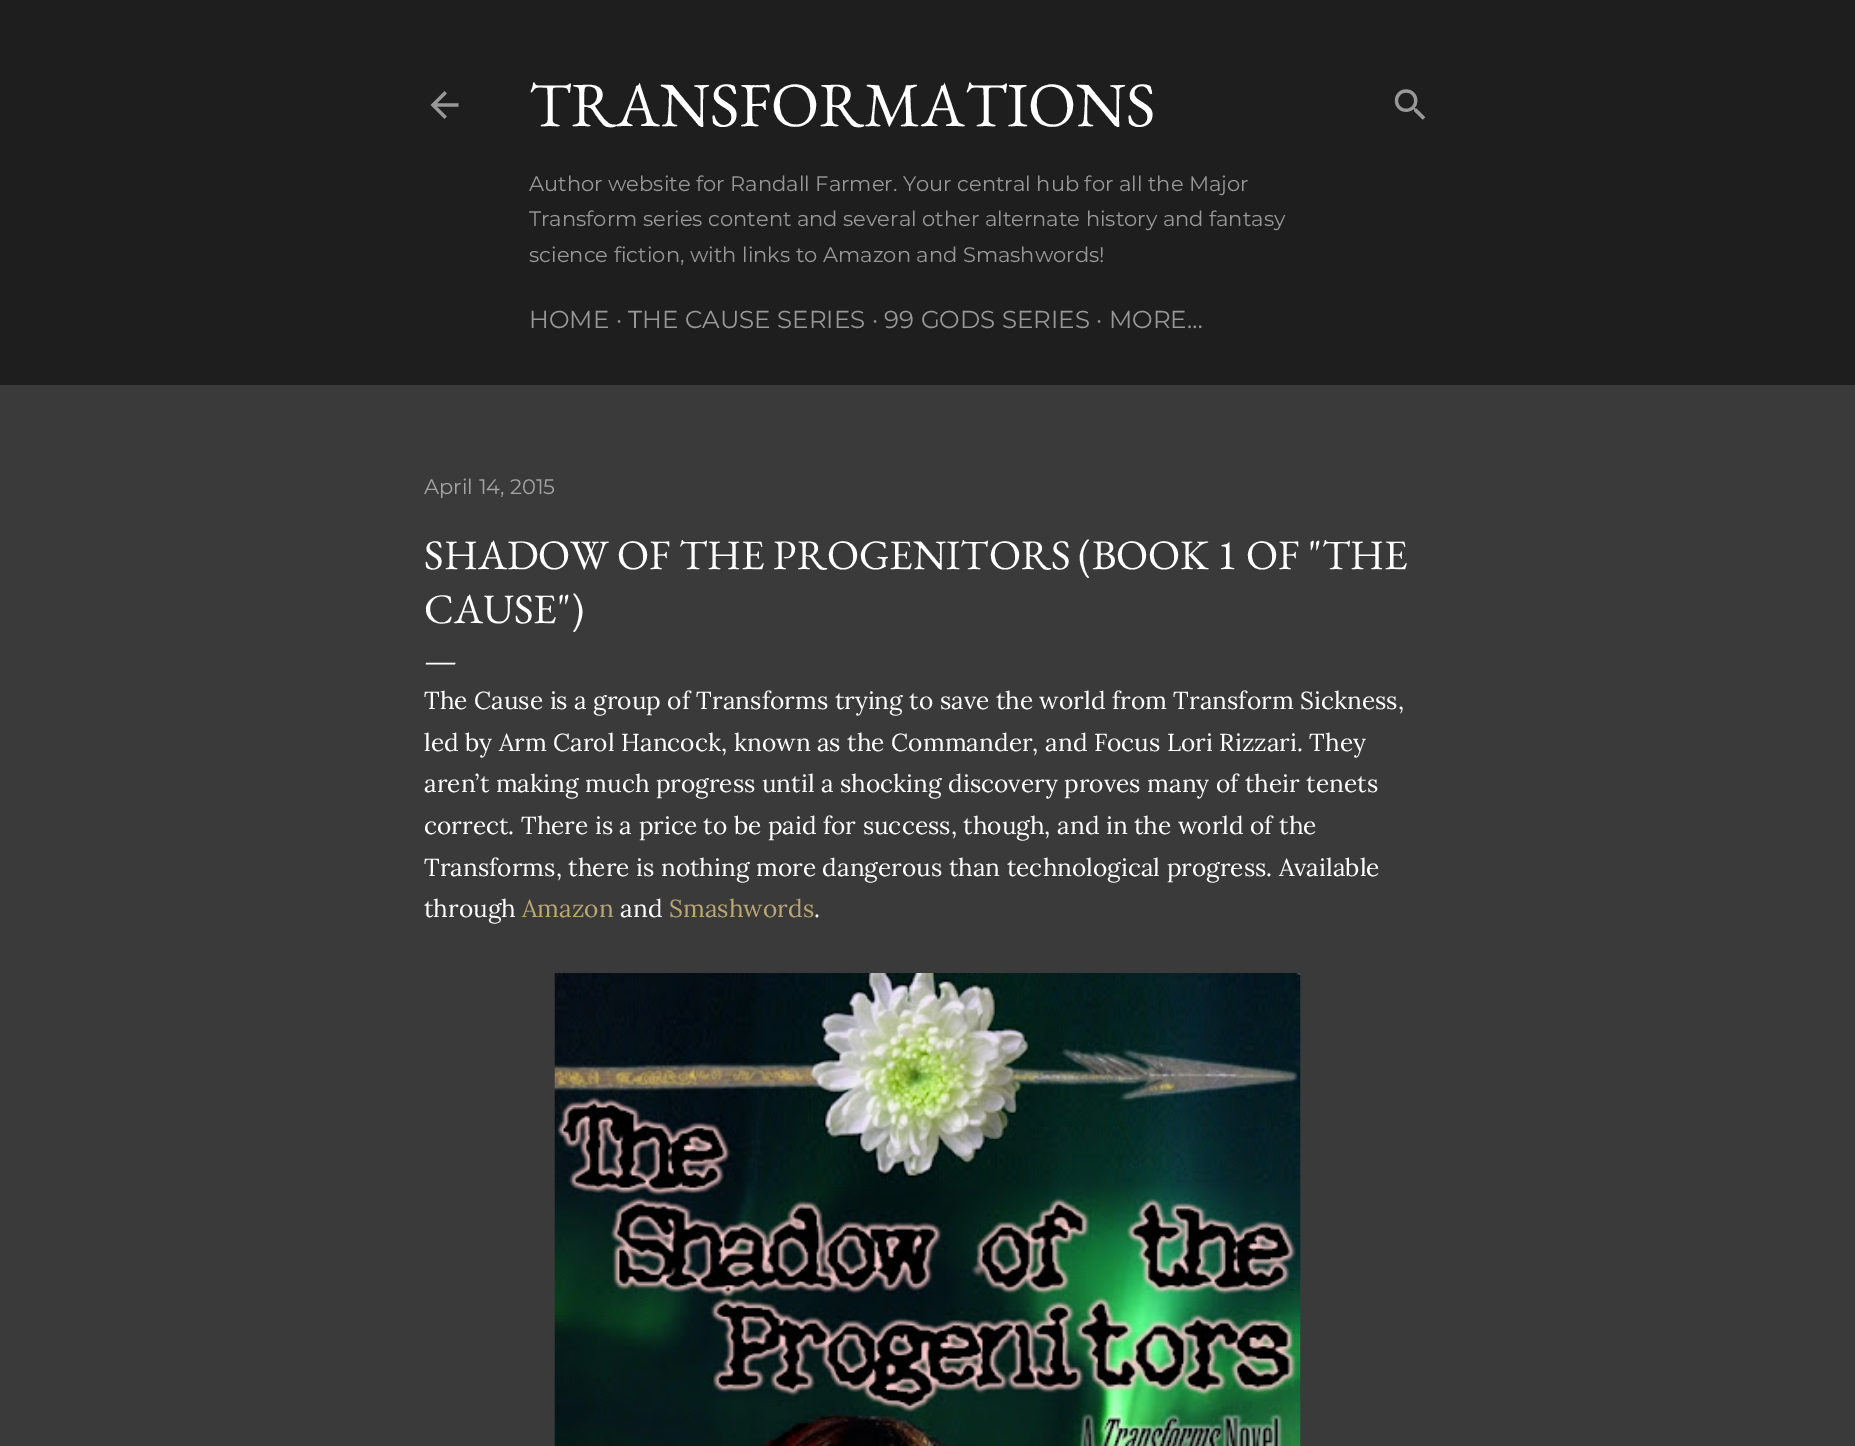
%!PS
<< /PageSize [1855 1446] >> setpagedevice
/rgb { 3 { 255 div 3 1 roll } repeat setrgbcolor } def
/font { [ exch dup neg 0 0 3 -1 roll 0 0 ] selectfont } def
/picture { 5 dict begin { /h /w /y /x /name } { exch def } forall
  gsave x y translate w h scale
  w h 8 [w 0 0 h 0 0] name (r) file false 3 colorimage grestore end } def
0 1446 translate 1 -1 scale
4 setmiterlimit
58 58 58 rgb
0 0 1855 1446 rectfill
30 30 30 rgb
0 0 1855 385 rectfill
(img/1.rgb) 430 91 29 28 picture
(img/2.rgb) 1394 89 32 31 picture
(img/3.rgb) 554 973 747 473 picture
/EBGaramond-Regular 63 font
255 255 255 rgb
529 126 moveto (TRANSFORMATIONS) show
/Montserrat-Regular 21 font
152 152 152 rgb
[
  [(Author website for Randall Farmer. Your central hub for all the Major) 529 191]
  [(Transform series content and several other alternate history and fantasy) 529 226]
  [(science fiction, with links to Amazon and Smashwords!) 529 262]
] { aload pop moveto show } forall
/Montserrat-Regular 24.5 font
529 328 moveto (HOME · THE CAUSE SERIES · 99 GODS SERIES · MORE…) show
/Montserrat-Regular 21 font
164 164 164 rgb
424 494 moveto (April 14, 2015) show
/EBGaramond-Regular 42 font
255 255 255 rgb
424 569 moveto (SHADOW OF THE PROGENITORS \(BOOK 1 OF "THE) show
424 623 moveto (CAUSE"\)) show
/EBGaramond-Regular 35 font
424 671 moveto (—) show
/Lora-Regular 24.5 font
[
  [(The Cause is a group of Transforms trying to save the world from Transform Sickness,) 424 709]
  [(led by Arm Carol Hancock, known as the Commander, and Focus Lori Rizzari. They) 424 751]
  [(aren’t making much progress until a shocking discovery proves many of their tenets) 424 792]
  [(correct. There is a price to be paid for success, though, and in the world of the) 424 834]
  [(Transforms, there is nothing more dangerous than technological progress. Available) 424 876]
  [(through) 424 917]
] { aload pop moveto show } forall
188 167 114 rgb
522 917 moveto (Amazon) show
255 255 255 rgb
620 917 moveto (and) show
188 167 114 rgb
669 917 moveto (Smashwords) show
255 255 255 rgb
814 917 moveto (.) show
showpage
